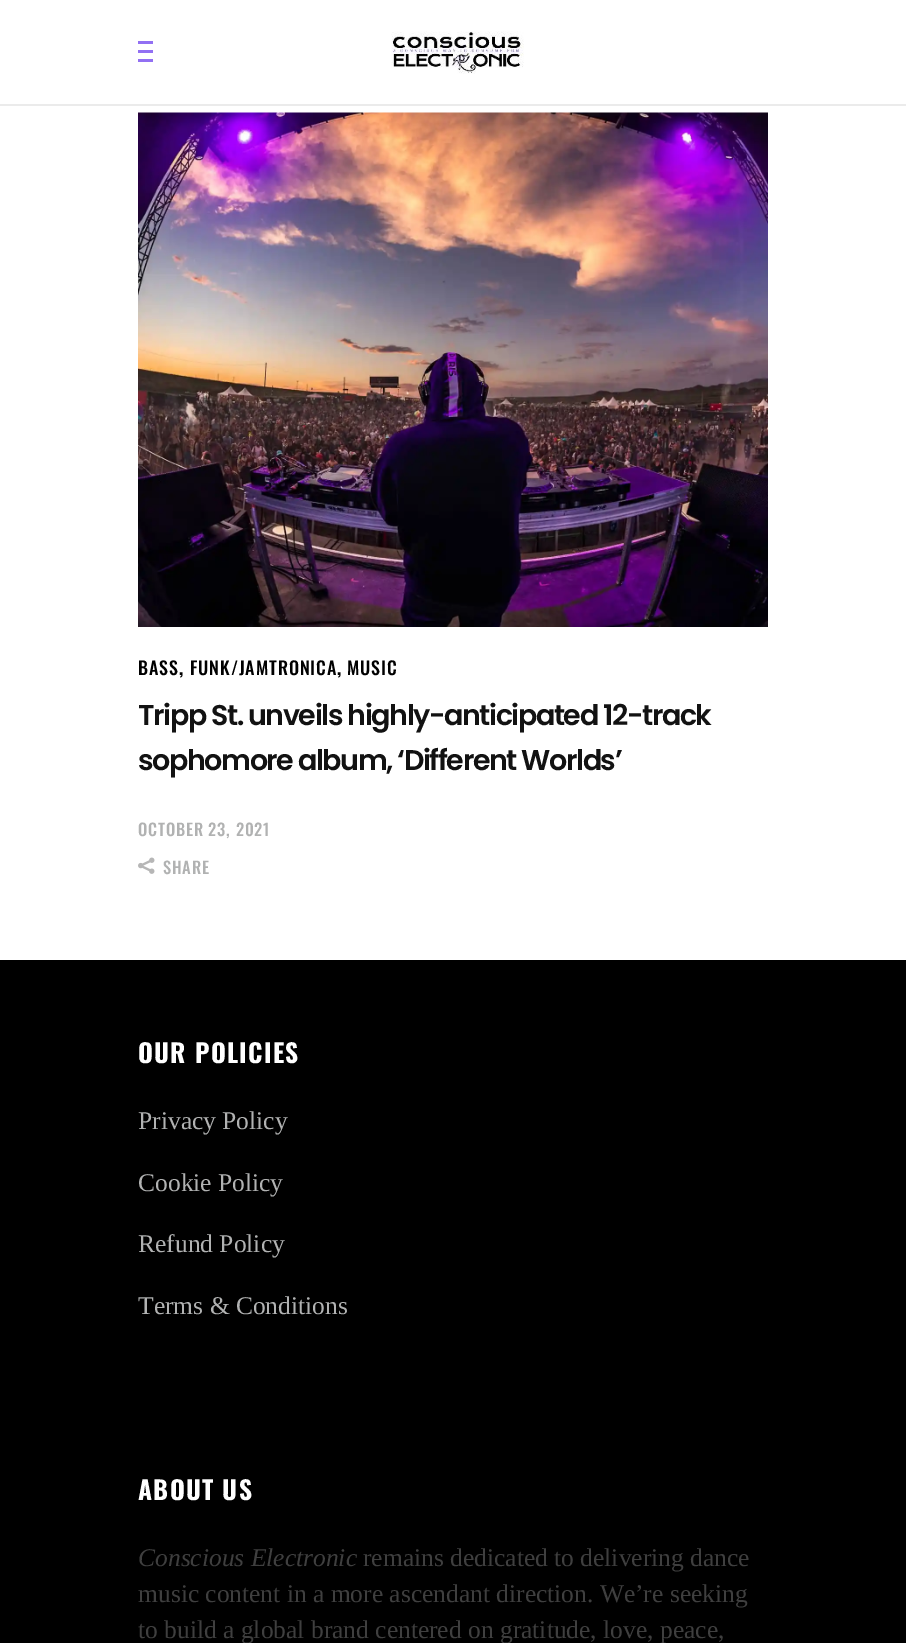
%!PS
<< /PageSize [906 1643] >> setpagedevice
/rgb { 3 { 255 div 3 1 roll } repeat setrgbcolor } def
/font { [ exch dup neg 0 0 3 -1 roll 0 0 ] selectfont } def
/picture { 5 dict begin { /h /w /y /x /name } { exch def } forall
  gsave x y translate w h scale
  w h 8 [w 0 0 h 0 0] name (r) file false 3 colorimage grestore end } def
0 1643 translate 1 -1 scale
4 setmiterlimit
255 255 255 rgb
0 0 906 1643 rectfill
[
  [0 104 906 2 235 235 235]
  [138 41 15 3 146 112 243]
  [138 50 15 3 146 112 243]
  [138 59 15 3 146 112 243]
] { aload pop rgb rectfill } forall
(img/1.rgb) 391 31 133 43 picture
(img/2.rgb) 138 112 630 515 picture
(img/3.rgb) 138 857 17 17 picture
0 0 0 rgb
0 960 906 683 rectfill
/Oswald-Medium 18 font
138 675 moveto 0.9 0 (BASS) ashow
/Oswald-Bold 18 font
179 675 moveto 0.9 0 (,) ashow
/Oswald-Medium 18 font
190 675 moveto 0.9 0 (FUNK/JAMTRONICA) ashow
/Oswald-Bold 18 font
337 675 moveto 0.9 0 (,) ashow
/Oswald-Medium 18 font
347 675 moveto 0.9 0 (MUSIC) ashow
/Poppins-SemiBold 28.5 font
18 18 18 rgb
138 725 moveto -1.4 0 (Tripp St. unveils highly-anticipated 12-track) ashow
138 770 moveto -1.4 0 (sophomore album, ‘Different Worlds’) ashow
/Oswald-Medium 16.5 font
177 178 178 rgb
138 836 moveto 0.8 0 (OCTOBER 23, 2021) ashow
163 874 moveto 0.8 0 (SHARE) ashow
/Oswald-Bold 25.5 font
255 255 255 rgb
138 1063 moveto 1.25 0 (OUR POLICIES) ashow
/LiberationSerif-Regular 25.5 font
177 178 178 rgb
[
  [(Privacy Policy) 138 1129]
  [(Cookie Policy) 138 1191]
  [(Refund Policy) 138 1252]
  [(Terms & Conditions) 138 1314]
] { aload pop moveto show } forall
/Oswald-Bold 25.5 font
255 255 255 rgb
138 1500 moveto 1.25 0 (ABOUT US) ashow
/LiberationSerif-Italic 25.5 font
63 63 63 rgb
138 1566 moveto (Conscious Electronic) show
/LiberationSerif-Regular 25.5 font
[
  [(remains dedicated to delivering dance) 363 1566]
  [(music content in a more ascendant direction. We’re seeking) 138 1602]
  [(to build a global brand centered on gratitude, love, peace,) 138 1638]
] { aload pop moveto show } forall
showpage
